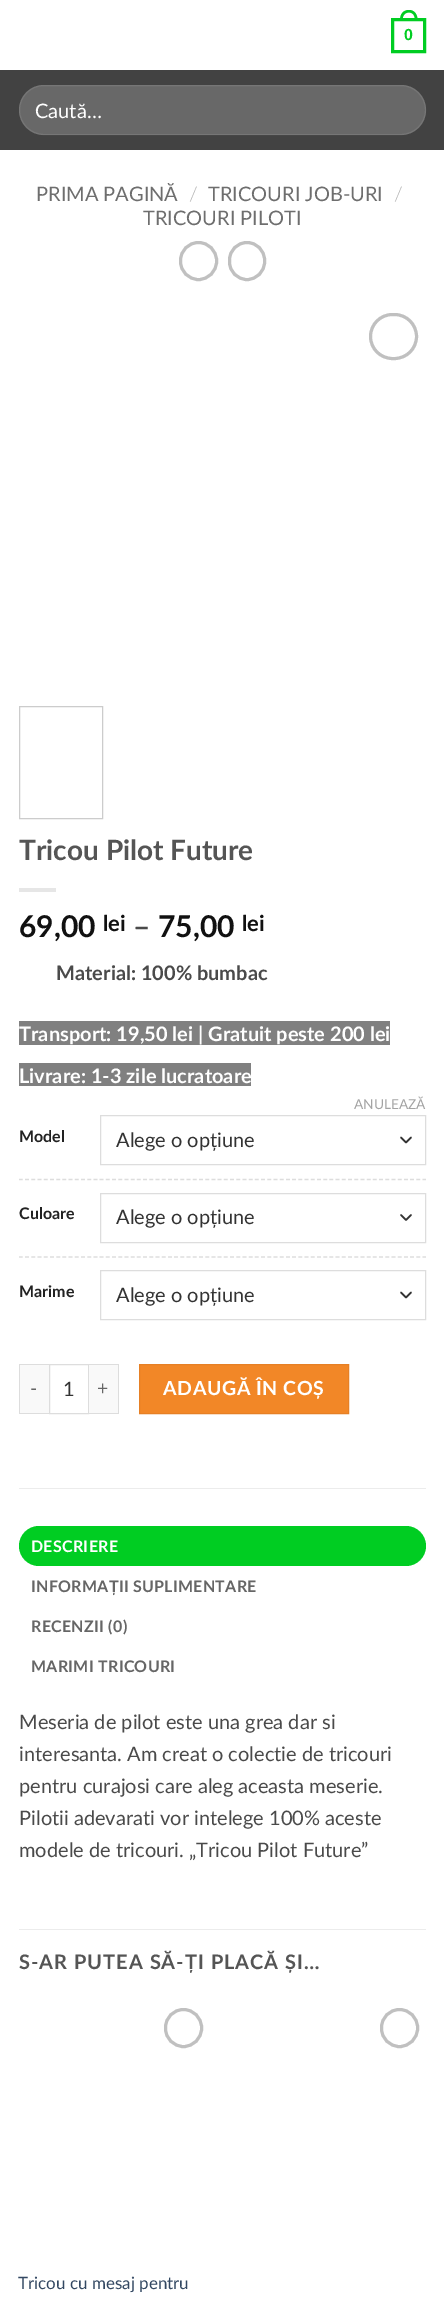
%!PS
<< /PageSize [444 2302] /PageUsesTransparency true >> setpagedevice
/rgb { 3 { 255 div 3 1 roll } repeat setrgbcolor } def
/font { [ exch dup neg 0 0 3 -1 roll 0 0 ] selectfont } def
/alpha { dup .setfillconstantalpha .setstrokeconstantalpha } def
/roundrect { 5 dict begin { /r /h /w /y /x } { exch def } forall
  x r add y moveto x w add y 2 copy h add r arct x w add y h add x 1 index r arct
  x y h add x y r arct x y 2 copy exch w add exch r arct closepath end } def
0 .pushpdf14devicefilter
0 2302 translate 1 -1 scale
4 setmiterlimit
255 255 255 rgb
0 0 444 2302 rectfill
0 205 34 rgb
3 setlinewidth
392.5 19.5 32 32 rectstroke
409 10 moveto 414.5 10 417.5 14.5 417.5 20 curveto 400 20 lineto 400 14.5 403 10 409 10 curveto closepath 409 12.5 moveto 413 12.5 415 16 415 20 curveto 402.5 20 lineto 402.5 16 404.5 12.5 409 12.5 curveto closepath eofill
66 66 66 rgb
0 70 444 80 rectfill
104 104 104 rgb
19 85 407 50 25 roundrect fill
0.09 alpha
255 255 255 rgb
1 setlinewidth
19.5 85.5 406 49 24.5 roundrect stroke
1 alpha
192 192 192 rgb
3 setlinewidth
180.5 242.5 36 37 18 roundrect stroke
229.5 242.5 35 37 17.5 roundrect stroke
370.5 314.5 46 44 22 roundrect stroke
204 204 204 rgb
1 setlinewidth
19.5 706.5 83 112 rectstroke
[
  [19 888 37 4 230 230 230]
  [19 1021 371 24 128 128 128]
  [19 1063 232 23 128 128 128]
] { aload pop rgb rectfill } forall
221 221 221 rgb
1.2 setlinewidth
[3.75 2.46] 0 setdash
19 1257 moveto 426 1257 lineto stroke
51 51 51 rgb
1.7 setlinewidth
1 setlinecap
1 setlinejoin
[] 0 setdash
401 1292.5 moveto 406 1297.5 lineto 411 1292.5 lineto stroke
221 221 221 rgb
1 setlinewidth
0 setlinecap
0 setlinejoin
100.5 1270.5 325 49 rectstroke
51 51 51 rgb
1.7 setlinewidth
1 setlinecap
1 setlinejoin
401 1137.5 moveto 406 1142.5 lineto 411 1137.5 lineto stroke
221 221 221 rgb
1 setlinewidth
0 setlinecap
0 setlinejoin
100.5 1115.5 325 49 rectstroke
1.2 setlinewidth
[3.75 2.46] 0 setdash
19 1179.5 moveto 426 1179.5 lineto stroke
51 51 51 rgb
1.7 setlinewidth
1 setlinecap
1 setlinejoin
[] 0 setdash
401 1215 moveto 406 1220 lineto 411 1215 lineto stroke
221 221 221 rgb
1 setlinewidth
0 setlinecap
0 setlinejoin
100.5 1193.5 325 49 rectstroke
[
  [20 1365 29 48 249 249 249]
  [19 1364 30 1 221 221 221]
  [19 1413 30 1 221 221 221]
  [19 1364 1 50 221 221 221]
] { aload pop rgb rectfill } forall
49.5 1364.5 39 49 rectstroke
[
  [89 1365 29 48 249 249 249]
  [89 1364 30 1 221 221 221]
  [118 1364 1 50 221 221 221]
  [89 1413 30 1 221 221 221]
] { aload pop rgb rectfill } forall
242 135 39 rgb
139.5 1364.5 moveto 348.5 1364.5 lineto 348.5 1413.5 lineto 139.5 1413.5 lineto closepath gsave fill grestore
230 128 37 rgb
stroke
236 236 236 rgb
19 1488 407 1 rectfill
0 205 34 rgb
19 1526 407 40 20 roundrect fill
236 236 236 rgb
19 1929 407 1 rectfill
192 192 192 rgb
3 setlinewidth
381.5 2009.5 36 37 18 roundrect stroke
165.5 2009.5 36 37 18 roundrect stroke
/LiberationSans-Bold 16 font
0 205 34 rgb
404 40 moveto (0) show
/Lato-Regular 20 font
255 255 255 rgb
35 118 moveto (Caută…) show
110 110 110 rgb
36 201 moveto (PRIMA PAGINĂ) show
/Lato-Light 20 font
178 178 178 rgb
189 201 moveto (/) show
/Lato-Regular 20 font
110 110 110 rgb
208 201 moveto (TRICOURI JOB-URI) show
/Lato-Light 20 font
178 178 178 rgb
394 201 moveto (/) show
/Lato-Regular 20 font
110 110 110 rgb
143 225 moveto (TRICOURI PILOTI) show
/Lato-Bold 28 font
85 85 85 rgb
19 860 moveto (Tricou Pilot Future) show
/Lato-Bold 30 font
17 17 17 rgb
19 937 moveto (69,00) show
/Lato-Bold 22 font
103 931 moveto (lei) show
/Lato-Bold 30 font
74 74 74 rgb
133 937 moveto (–) show
17 17 17 rgb
158 937 moveto (75,00) show
/Lato-Bold 22 font
242 931 moveto (lei) show
/Lato-Bold 20 font
74 74 74 rgb
56 980 moveto (Material: 100% bumbac) show
255 255 255 rgb
19 1041 moveto (Transport: 19,50 lei | Gratuit peste 200 lei) show
19 1083 moveto (Livrare: 1-3 zile lucratoare) show
/Lato-Bold 16 font
34 34 34 rgb
19 1297 moveto (Marime) show
/Lato-Regular 13.75 font
163 163 163 rgb
354 1109 moveto (ANULEAZĂ) show
/Lato-Regular 20 font
51 51 51 rgb
116 1302 moveto (Alege o opțiune) show
/Lato-Bold 16 font
34 34 34 rgb
19 1142 moveto (Model) show
/Lato-Regular 20 font
51 51 51 rgb
116 1147 moveto (Alege o opțiune) show
/Lato-Bold 16 font
34 34 34 rgb
19 1219 moveto (Culoare) show
/Lato-Regular 20 font
51 51 51 rgb
116 1224 moveto (Alege o opțiune) show
/Lato-Regular 19.5 font
102 102 102 rgb
30 1395 moveto 0.6 0 (-) ashow
/Lato-Regular 20 font
51 51 51 rgb
63 1396 moveto (1) show
/Lato-Regular 19.5 font
102 102 102 rgb
97 1395 moveto 0.6 0 (+) ashow
/Lato-Bold 19.5 font
255 255 255 rgb
163 1395 moveto 0.6 0 (ADAUGĂ ÎN COȘ) ashow
/Lato-Bold 16 font
31 1552 moveto 0.3 0 (DESCRIERE) ashow
102 102 102 rgb
31 1592 moveto 0.3 0 (INFORMAȚII SUPLIMENTARE) ashow
31 1632 moveto 0.3 0 (RECENZII \(0\)) ashow
31 1672 moveto 0.3 0 (MARIMI TRICOURI) ashow
/Lato-Regular 20 font
74 74 74 rgb
[
  [(Meseria de pilot este una grea dar si) 19 1729]
  [(interesanta. Am creat o colectie de tricouri) 19 1761]
  [(pentru curajosi care aleg aceasta meserie.) 19 1793]
  [(Pilotii adevarati vor intelege 100% aceste) 19 1825]
  [(modele de tricouri. „Tricou Pilot Future”) 19 1857]
] { aload pop moveto show } forall
/Lato-Bold 20 font
85 85 85 rgb
19 1969 moveto 1 0 (S-AR PUTEA SĂ-ȚI PLACĂ ȘI…) ashow
/Lato-Regular 17 font
51 72 98 rgb
18 2289 moveto (Tricou cu mesaj pentru) show
.poppdf14devicefilter showpage
